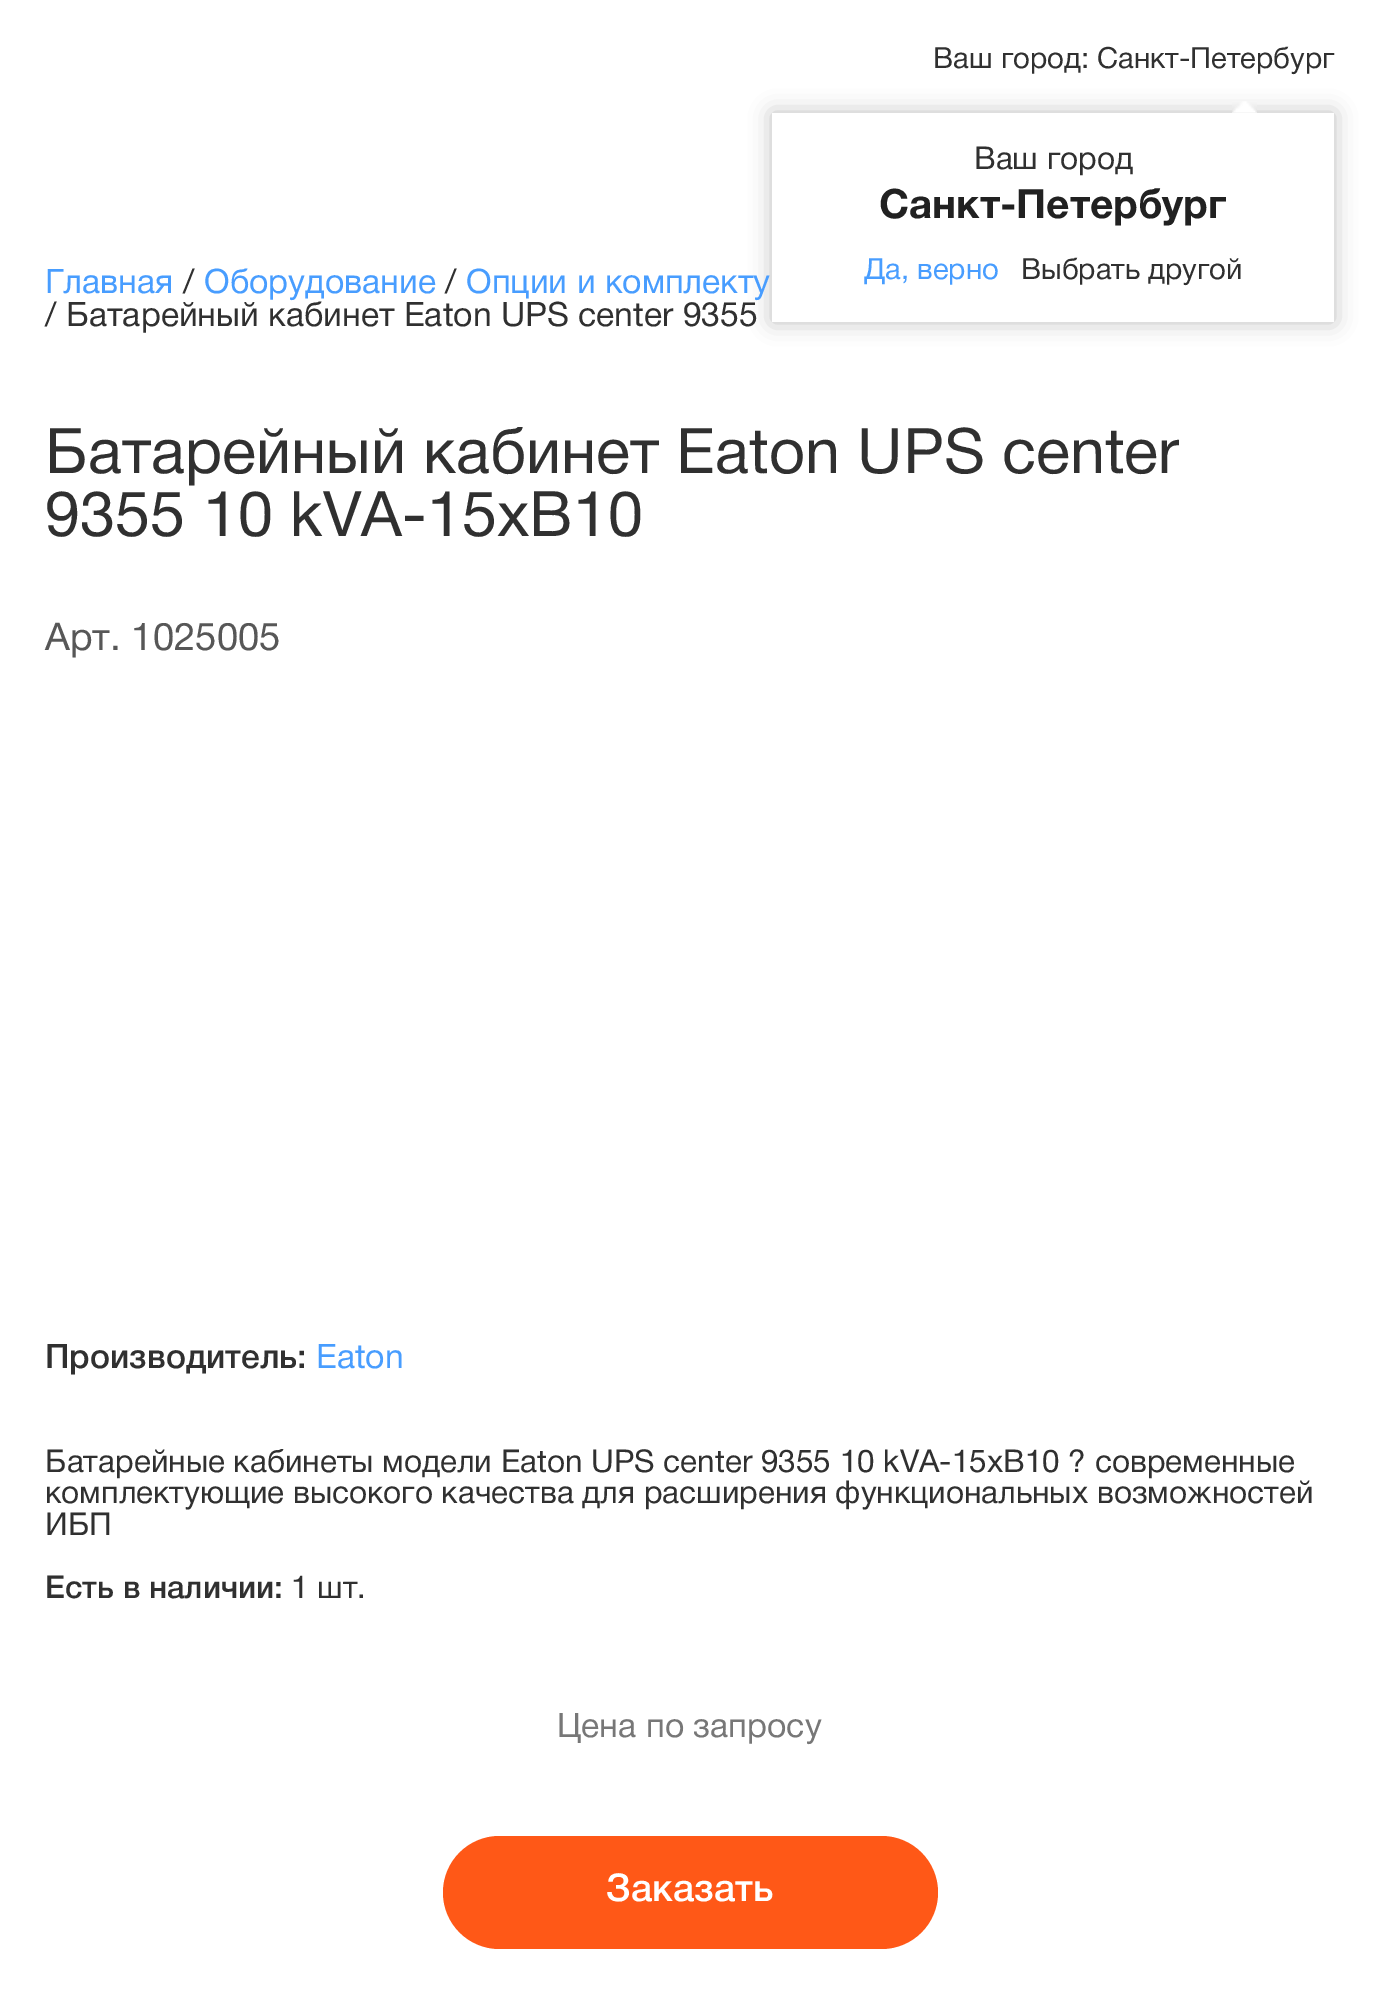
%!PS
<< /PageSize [1379 2002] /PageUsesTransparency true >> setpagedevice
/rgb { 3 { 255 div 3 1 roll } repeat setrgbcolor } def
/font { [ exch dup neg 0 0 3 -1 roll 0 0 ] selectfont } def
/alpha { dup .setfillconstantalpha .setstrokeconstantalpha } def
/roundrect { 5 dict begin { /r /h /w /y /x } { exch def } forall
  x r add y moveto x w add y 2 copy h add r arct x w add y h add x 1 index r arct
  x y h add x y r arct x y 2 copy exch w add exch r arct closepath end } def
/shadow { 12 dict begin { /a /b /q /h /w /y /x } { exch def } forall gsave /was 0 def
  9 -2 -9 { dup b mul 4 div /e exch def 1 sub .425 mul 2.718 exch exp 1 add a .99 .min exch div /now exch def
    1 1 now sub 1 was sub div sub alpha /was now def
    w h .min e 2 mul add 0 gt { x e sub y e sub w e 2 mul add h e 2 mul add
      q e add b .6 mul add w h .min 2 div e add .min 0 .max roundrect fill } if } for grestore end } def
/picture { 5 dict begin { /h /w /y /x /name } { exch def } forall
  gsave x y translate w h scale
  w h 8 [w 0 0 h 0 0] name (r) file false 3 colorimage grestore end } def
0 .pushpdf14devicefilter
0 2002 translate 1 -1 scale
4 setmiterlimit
255 255 255 rgb
0 0 1379 2002 rectfill
0 0 0 rgb
772 113 562 209 0 11 0.25 shadow
255 255 255 rgb
772 113 562 209 rectfill
(img/1.rgb) 1232 101 25 12 picture
255 88 23 rgb
443 1836 495 113 56.5 roundrect fill
/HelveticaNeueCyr-Regular 29.25 font
48 48 48 rgb
933 68 moveto (Ваш город: Санкт-Петербург) show
/HelveticaNeueCyr-Regular 31.5 font
974 169 moveto (Ваш город) show
/HelveticaNeueCyr-Bold 40.5 font
33 33 33 rgb
879 218 moveto (Санкт-Петербург) show
/HelveticaNeueCyr-Regular 29.25 font
72 157 255 rgb
864 279 moveto (Да, верно) show
48 48 48 rgb
1021 279 moveto (Выбрать другой) show
/HelveticaNeueCyr-Regular 33.75 font
72 157 255 rgb
45 293 moveto (Главная) show
48 48 48 rgb
183 293 moveto (/) show
72 157 255 rgb
204 293 moveto (Оборудование) show
48 48 48 rgb
445 293 moveto (/) show
72 157 255 rgb
466 293 moveto (Опции и комплекту) show
48 48 48 rgb
45 326 moveto (/ Батарейный кабинет Eaton UPS center 9355) show
/HelveticaNeueCyr-Regular 63 font
45 473 moveto (Батарейный кабинет Eaton UPS center) show
45 536 moveto (9355 10 kVA-15xB10) show
/HelveticaNeueCyr-Regular 38.25 font
87 87 87 rgb
45 650 moveto (Арт. 1025005) show
/HelveticaNeueCyr-Medium 33.75 font
48 48 48 rgb
45 1368 moveto (Производитель:) show
/HelveticaNeueCyr-Regular 33.75 font
72 157 255 rgb
316 1368 moveto (Eaton) show
/HelveticaNeueCyr-Regular 31.5 font
48 48 48 rgb
[
  [(Батарейные кабинеты модели Eaton UPS center 9355 10 kVA-15xB10 ? современные) 45 1472]
  [(комплектующие высокого качества для расширения функциональных возможностей) 45 1503]
  [(ИБП) 45 1535]
] { aload pop moveto show } forall
/HelveticaNeueCyr-Medium 31.5 font
45 1598 moveto (Есть в наличии:) show
/HelveticaNeueCyr-Regular 31.5 font
291 1598 moveto (1 шт.) show
/HelveticaNeueCyr-Regular 33.75 font
119 119 119 rgb
557 1737 moveto (Цена по запросу) show
/HelveticaNeueCyr-Medium 38.25 font
255 255 255 rgb
606 1901 moveto (Заказать) show
.poppdf14devicefilter showpage
